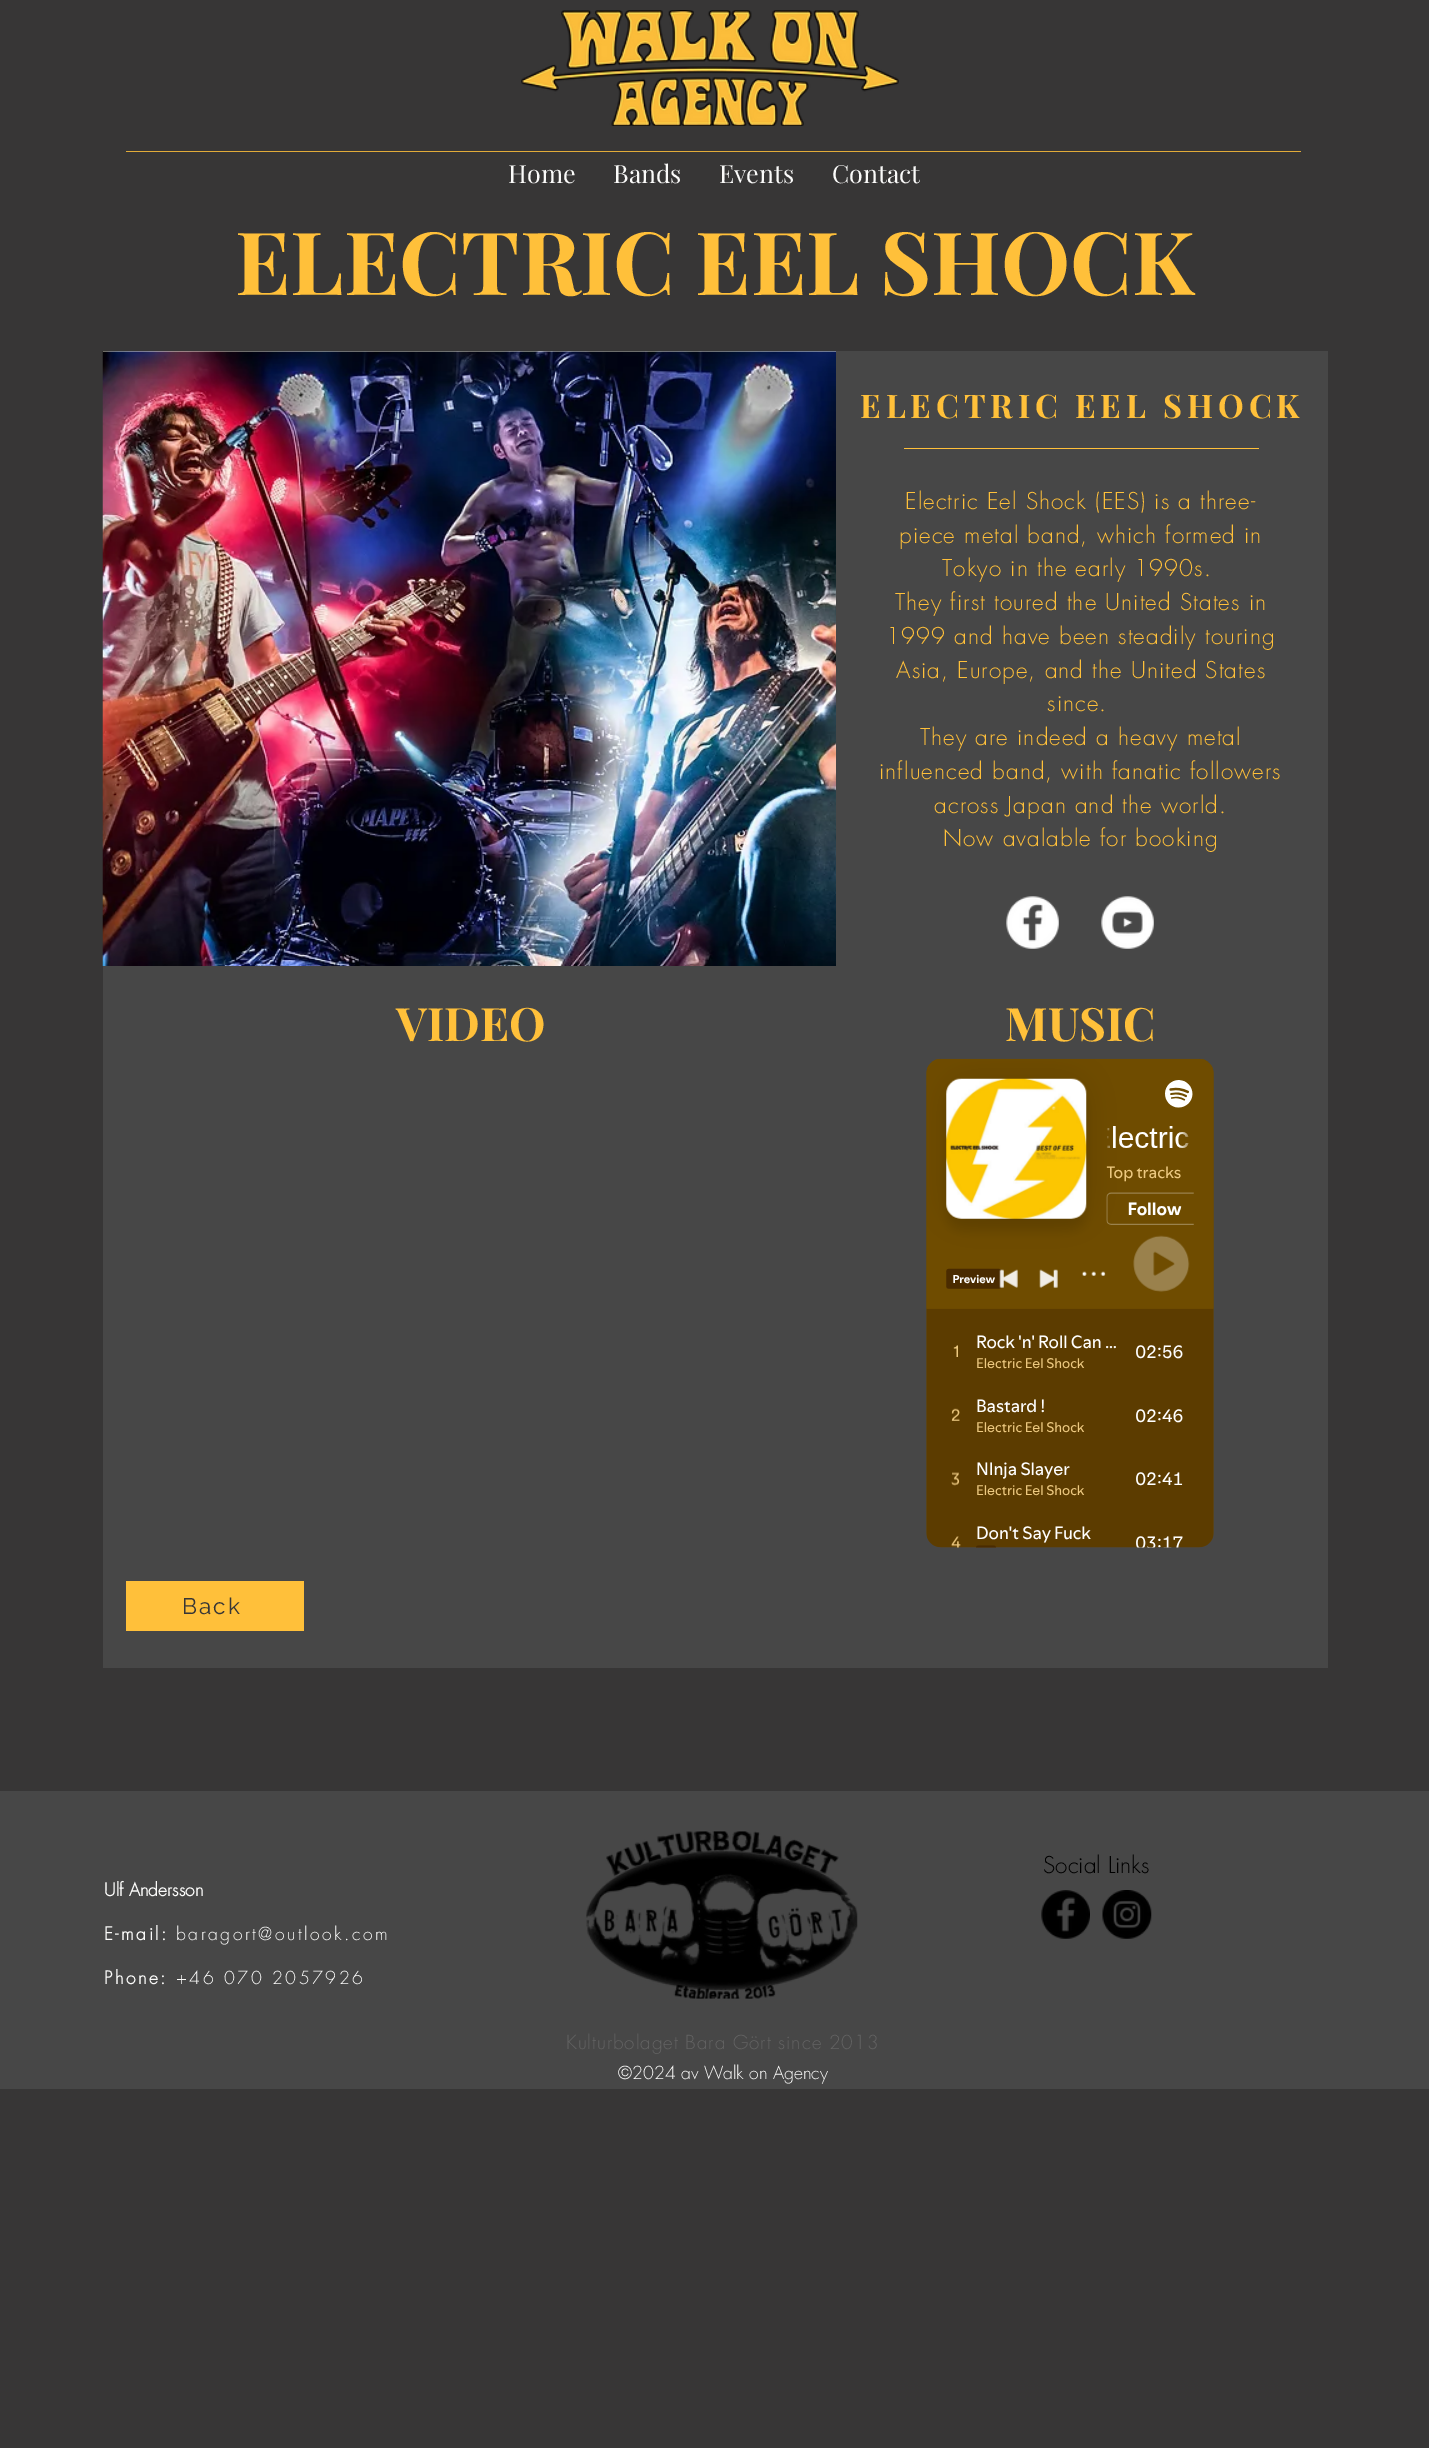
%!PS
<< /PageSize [1429 2448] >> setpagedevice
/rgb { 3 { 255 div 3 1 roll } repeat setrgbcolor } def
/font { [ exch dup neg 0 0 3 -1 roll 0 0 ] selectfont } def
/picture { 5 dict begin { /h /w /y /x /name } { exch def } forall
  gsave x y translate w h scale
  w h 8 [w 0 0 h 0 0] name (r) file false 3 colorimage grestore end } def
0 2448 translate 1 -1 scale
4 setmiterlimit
55 54 54 rgb
0 0 1429 2448 rectfill
(img/1.rgb) 521 10 378 116 picture
225 171 57 rgb
126 151 1175 1 rectfill
247 245 225 rgb
103 351 733 1 rectfill
(img/2.rgb) 102 351 734 615 picture
71 71 71 rgb
836 351 492 615 rectfill
255 192 58 rgb
904 448 355 1 rectfill
(img/3.rgb) 1006 896 53 53 picture
(img/4.rgb) 1101 896 53 53 picture
71 71 71 rgb
103 966 1225 702 rectfill
(img/5.rgb) 926 1058 288 490 picture
255 192 58 rgb
126 1581 178 50 rectfill
71 71 71 rgb
0 1791 1429 298 rectfill
(img/6.rgb) 586 1831 272 168 picture
(img/7.rgb) 1041 1890 49 49 picture
(img/8.rgb) 1102 1890 50 49 picture
/PlayfairDisplay-Regular 25 font
251 251 250 rgb
[
  [(Home) 508 183]
  [(Bands) 613 183]
  [(Events) 719 183]
  [(Contact) 832 183]
] { aload pop moveto show } forall
/PlayfairDisplay-Bold 87.5 font
255 192 58 rgb
235 295 moveto (ELECTRIC EEL SHOCK) show
/PlayfairDisplay-Bold 32.5 font
860 418 moveto 4.9 0 (ELECTRIC EEL SHOCK) ashow
/futura-Light 22.5 font
905 509 moveto 1.1 0 (Electric Eel Shock \(EES\) is a three-) ashow
899 543 moveto 1.1 0 (piece metal band, which formed in) ashow
942 576 moveto 1.1 0 (Tokyo in the early 1990s.) ashow
895 610 moveto 1.1 0 (They first toured the United States in) ashow
886 644 moveto 1.1 0 (1999 and have been steadily touring) ashow
896 678 moveto 1.1 0 (Asia, Europe, and the United States) ashow
1047 711 moveto 1.1 0 (since.) ashow
920 745 moveto 1.1 0 (They are indeed a heavy metal) ashow
879 779 moveto 1.1 0 (influenced band, with fanatic followers) ashow
934 813 moveto 1.1 0 (across Japan and the world.) ashow
943 846 moveto 1.1 0 (Now avalable for booking) ashow
/PlayfairDisplay-Bold 46 font
396 1041 moveto (VIDEO) show
1005 1041 moveto (MUSIC) show
/Raleway-Regular 22.5 font
55 54 54 rgb
182 1614 moveto 2 0 (Back) ashow
/futura-Light 22.5 font
0 0 0 rgb
1043 1873 moveto (Social Links) show
/futura-Bold 17.5 font
251 251 250 rgb
104 1896 moveto (Ulf Andersson) show
104 1940 moveto 2.5 0 (E-mail:) ashow
/futura-Light 17.5 font
176 1940 moveto 2.5 0 (baragort@outlook.com) ashow
/futura-Bold 17.5 font
104 1984 moveto 2.5 0 (Phone:) ashow
/futura-Light 17.5 font
176 1984 moveto 2.5 0 (+46 070 2057926) ashow
/futura-Light 18.75 font
99 99 99 rgb
566 2049 moveto 0.95 0 (Kulturbolaget Bara Gört since 2013) ashow
/futura-Light 17.5 font
251 251 250 rgb
618 2079 moveto (©2024 av Walk on Agency) show
showpage
